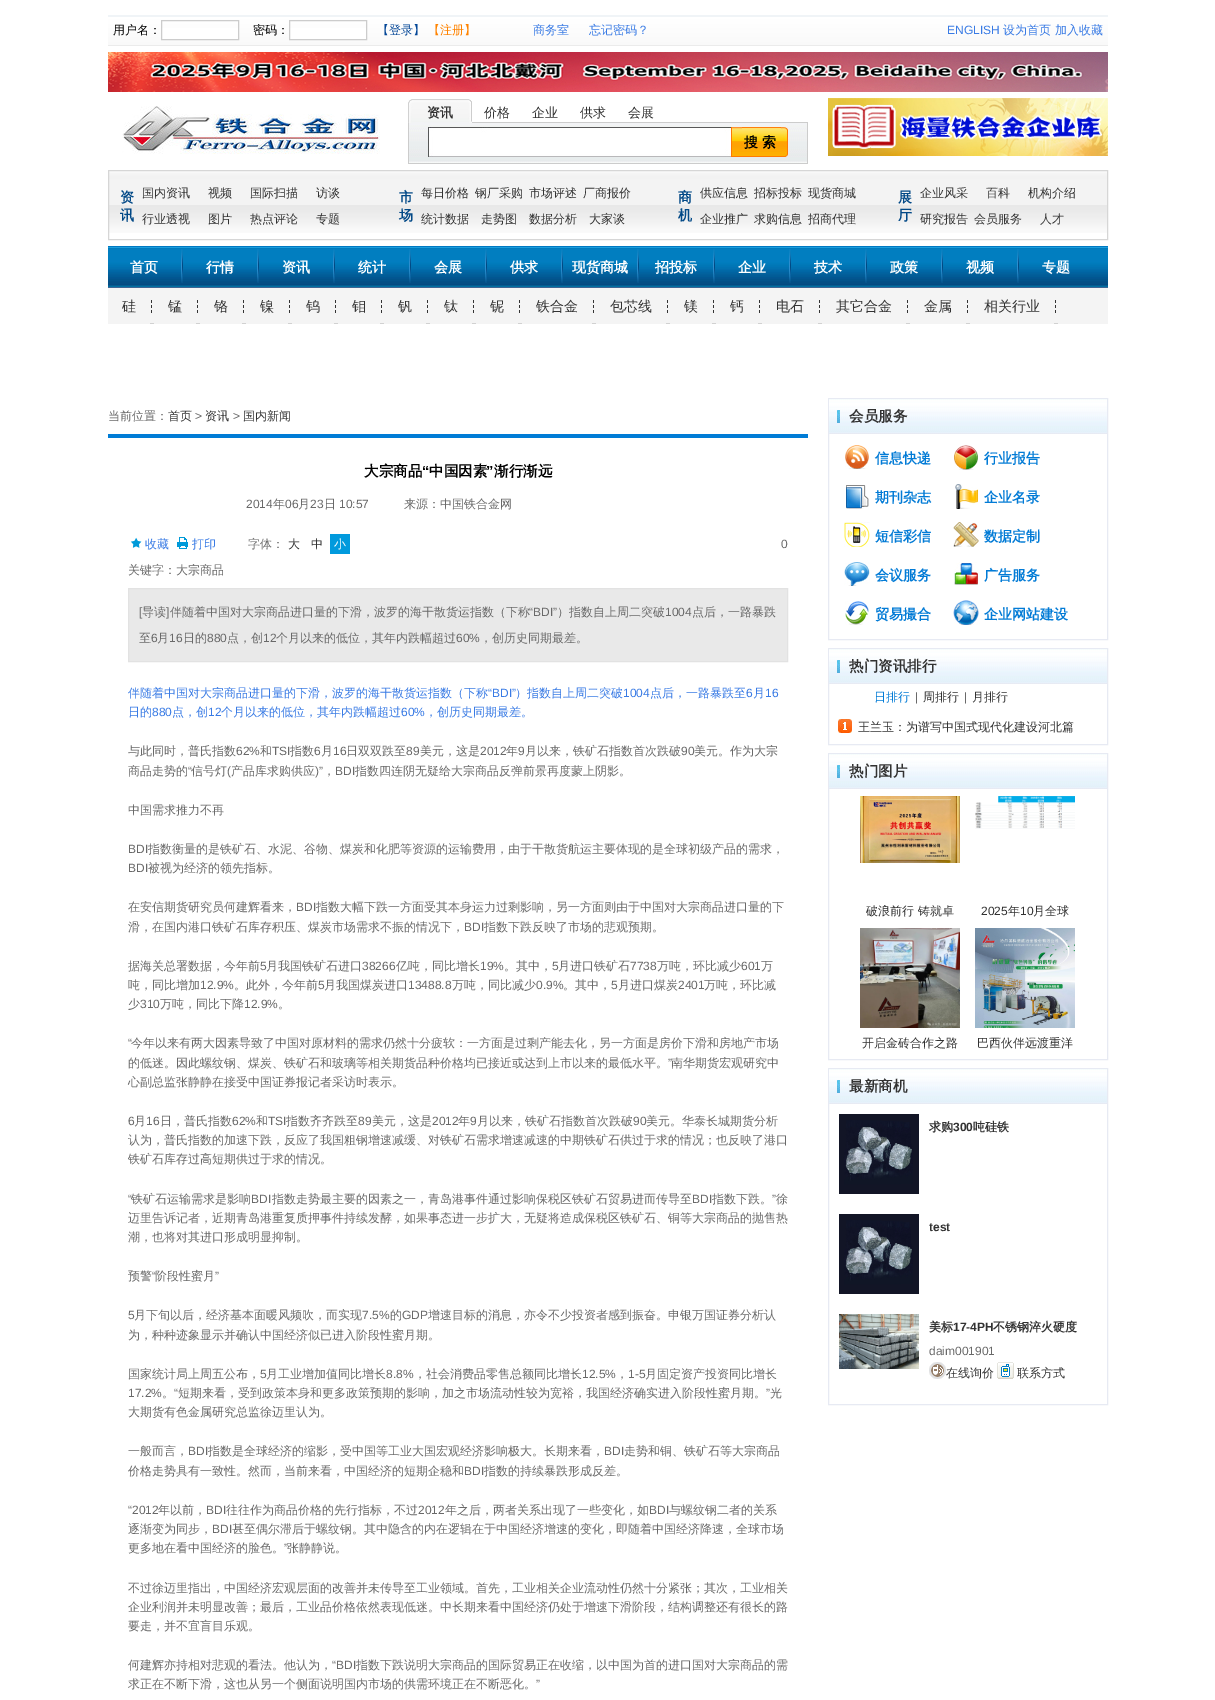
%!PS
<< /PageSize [1215 1700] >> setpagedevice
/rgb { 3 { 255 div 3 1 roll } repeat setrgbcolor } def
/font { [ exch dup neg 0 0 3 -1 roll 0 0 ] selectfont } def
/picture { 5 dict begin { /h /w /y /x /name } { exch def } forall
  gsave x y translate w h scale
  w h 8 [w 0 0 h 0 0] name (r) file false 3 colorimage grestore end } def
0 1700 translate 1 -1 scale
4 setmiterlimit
255 255 255 rgb
0 0 1215 1700 rectfill
(img/1.rgb) 108 15 1000 31 picture
162 28 76 11 rectfill
204 204 204 rgb
161.5 20.5 77 19 rectstroke
255 255 255 rgb
290 28 76 11 rectfill
204 204 204 rgb
289.5 20.5 77 19 rectstroke
(img/2.rgb) 108 52 1000 40 picture
(img/3.rgb) 122 106 258 48 picture
472 122 336 1 rectfill
(img/4.rgb) 408 99 64 24 picture
(img/5.rgb) 409 123 398 40 picture
[
  [807 123 1 41 204 204 204]
  [408 163 400 1 204 204 204]
  [408 123 1 41 204 204 204]
] { aload pop rgb rectfill } forall
(img/6.rgb) 428 127 360 30 picture
255 255 255 rgb
483 128 6 1 rectfill
(img/7.rgb) 828 98 280 58 picture
(img/8.rgb) 109 171 998 62 picture
214 214 214 rgb
108.5 170.5 999 69 rectstroke
(img/9.rgb) 108 246 1000 42 picture
(img/10.rgb) 181 249 2 34 picture
(img/10.rgb) 257 249 2 34 picture
(img/10.rgb) 333 249 2 34 picture
(img/10.rgb) 409 249 2 34 picture
(img/10.rgb) 485 249 2 34 picture
(img/10.rgb) 561 249 2 34 picture
(img/10.rgb) 637 249 2 34 picture
(img/10.rgb) 713 249 2 34 picture
(img/10.rgb) 789 249 2 34 picture
(img/10.rgb) 865 249 2 34 picture
(img/10.rgb) 941 249 2 34 picture
(img/10.rgb) 1017 249 2 34 picture
244 244 244 rgb
108 288 1000 36 rectfill
(img/11.rgb) 150 300 4 24 picture
(img/11.rgb) 196 300 4 24 picture
(img/11.rgb) 242 300 4 24 picture
(img/11.rgb) 288 300 4 24 picture
(img/11.rgb) 334 300 4 24 picture
(img/11.rgb) 380 300 4 24 picture
(img/11.rgb) 426 300 4 24 picture
(img/11.rgb) 472 300 4 24 picture
(img/11.rgb) 518 300 4 24 picture
(img/11.rgb) 592 300 4 24 picture
(img/11.rgb) 666 300 4 24 picture
(img/11.rgb) 712 300 4 24 picture
(img/11.rgb) 758 300 4 24 picture
(img/11.rgb) 818 300 4 24 picture
(img/11.rgb) 906 300 4 24 picture
(img/11.rgb) 966 300 4 24 picture
(img/11.rgb) 1054 300 4 24 picture
0 124 214 rgb
108 434 700 4 rectfill
(img/12.rgb) 130 537 12 11 picture
(img/13.rgb) 177 537 11 12 picture
1 154 221 rgb
330 534 20 20 rectfill
233 233 233 rgb
128.5 588.5 moveto 787.5 588.5 lineto 787.5 661.5 lineto 128.5 661.5 lineto closepath gsave fill grestore
226 226 226 rgb
stroke
231 234 243 rgb
828.5 398.5 279 241 rectstroke
(img/14.rgb) 829 399 278 35 picture
(img/15.rgb) 837 410 3 13 picture
(img/16.rgb) 845 445 24 24 picture
(img/17.rgb) 954 445 24 25 picture
(img/18.rgb) 846 485 23 24 picture
(img/19.rgb) 955 484 24 25 picture
(img/20.rgb) 844 522 26 25 picture
(img/21.rgb) 953 522 26 25 picture
(img/22.rgb) 844 562 26 24 picture
(img/23.rgb) 954 562 25 23 picture
(img/24.rgb) 845 601 24 24 picture
(img/25.rgb) 953 600 27 25 picture
828.5 648.5 279 96 rectstroke
(img/14.rgb) 829 649 278 35 picture
(img/15.rgb) 837 660 3 13 picture
(img/26.rgb) 838 719 14 14 picture
828.5 753.5 279 306 rectstroke
(img/14.rgb) 829 754 278 35 picture
(img/15.rgb) 837 765 3 13 picture
(img/27.rgb) 860 796 100 67 picture
(img/28.rgb) 975 796 100 33 picture
(img/29.rgb) 860 928 100 100 picture
(img/30.rgb) 975 928 100 100 picture
828.5 1068.5 279 336 rectstroke
(img/14.rgb) 829 1069 278 35 picture
(img/15.rgb) 837 1080 3 13 picture
(img/31.rgb) 839 1114 80 80 picture
(img/32.rgb) 839 1214 80 80 picture
(img/33.rgb) 839 1314 80 55 picture
(img/34.rgb) 929 1362 17 17 picture
(img/35.rgb) 997 1362 17 17 picture
/WenQuanYiZenHei-Medium 12 font
0 0 0 rgb
113 34 moveto (用户名：) show
253 34 moveto (密码：) show
3 70 151 rgb
377 34 moveto (【登录】) show
255 131 0 rgb
428 34 moveto (【注册】) show
57 123 229 rgb
533 34 moveto (商务室) show
589 34 moveto (忘记密码？) show
/LiberationSans-Regular 12 font
947 34 moveto (ENGLISH) show
/WenQuanYiZenHei-Medium 12 font
1003 34 moveto (设为首页 加入收藏) show
/WenQuanYiZenHei-Bold 13 font
50 50 50 rgb
427 117 moveto (资讯) show
/WenQuanYiZenHei-Medium 13 font
[
  [(价格) 484 117]
  [(企业) 532 117]
  [(供求) 580 117]
  [(会展) 628 117]
] { aload pop moveto show } forall
/WenQuanYiZenHei-Bold 14 font
0 0 0 rgb
744 147 moveto (搜 索) show
2 73 135 rgb
120 202 moveto (资) show
120 220 moveto (讯) show
/WenQuanYiZenHei-Medium 12 font
50 50 50 rgb
[
  [(国内资讯) 142 197]
  [(视频) 208 197]
  [(国际扫描) 250 197]
  [(访谈) 316 197]
  [(行业透视) 142 223]
  [(图片) 208 223]
  [(热点评论) 250 223]
  [(专题) 316 223]
] { aload pop moveto show } forall
/WenQuanYiZenHei-Bold 14 font
2 73 135 rgb
399 202 moveto (市) show
399 220 moveto (场) show
/WenQuanYiZenHei-Medium 12 font
50 50 50 rgb
[
  [(每日价格) 421 197]
  [(钢厂采购) 475 197]
  [(市场评述) 529 197]
  [(厂商报价) 583 197]
  [(统计数据) 421 223]
  [(走势图) 481 223]
  [(数据分析) 529 223]
  [(大家谈) 589 223]
] { aload pop moveto show } forall
/WenQuanYiZenHei-Bold 14 font
2 73 135 rgb
678 202 moveto (商) show
678 220 moveto (机) show
/WenQuanYiZenHei-Medium 12 font
50 50 50 rgb
[
  [(供应信息) 700 197]
  [(招标投标) 754 197]
  [(现货商城) 808 197]
  [(企业推广) 700 223]
  [(求购信息) 754 223]
  [(招商代理) 808 223]
] { aload pop moveto show } forall
/WenQuanYiZenHei-Bold 14 font
2 73 135 rgb
898 202 moveto (展) show
898 220 moveto (厅) show
/WenQuanYiZenHei-Medium 12 font
50 50 50 rgb
[
  [(企业风采) 920 197]
  [(百科) 986 197]
  [(机构介绍) 1028 197]
  [(研究报告) 920 223]
  [(会员服务) 974 223]
  [(人才) 1040 223]
] { aload pop moveto show } forall
/WenQuanYiZenHei-Bold 14 font
255 255 255 rgb
[
  [(首页) 130 272]
  [(行情) 206 272]
  [(资讯) 282 272]
  [(统计) 358 272]
  [(会展) 434 272]
  [(供求) 510 272]
  [(现货商城) 572 272]
  [(招投标) 655 272]
  [(企业) 738 272]
  [(技术) 814 272]
  [(政策) 890 272]
  [(视频) 966 272]
  [(专题) 1042 272]
] { aload pop moveto show } forall
/WenQuanYiZenHei-Medium 14 font
50 50 50 rgb
[
  [(硅) 122 311]
  [(锰) 168 311]
  [(铬) 214 311]
  [(镍) 260 311]
  [(钨) 306 311]
  [(钼) 352 311]
  [(钒) 398 311]
  [(钛) 444 311]
  [(铌) 490 311]
  [(铁合金) 536 311]
  [(包芯线) 610 311]
  [(镁) 684 311]
  [(钙) 730 311]
  [(电石) 776 311]
  [(其它合金) 836 311]
  [(金属) 924 311]
  [(相关行业) 984 311]
] { aload pop moveto show } forall
/WenQuanYiZenHei-Medium 12 font
105 105 105 rgb
108 420 moveto (当前位置：) show
50 50 50 rgb
168 420 moveto (首页) show
/LiberationSans-Regular 12 font
105 105 105 rgb
195 420 moveto (>) show
/WenQuanYiZenHei-Medium 12 font
50 50 50 rgb
205 420 moveto (资讯) show
/LiberationSans-Regular 12 font
105 105 105 rgb
233 420 moveto (>) show
/WenQuanYiZenHei-Medium 12 font
50 50 50 rgb
243 420 moveto (国内新闻) show
/WenQuanYiZenHei-Bold 14.5 font
0 0 0 rgb
364 476 moveto (大宗商品) show
/LiberationSans-Bold 14.5 font
422 476 moveto (“) show
/WenQuanYiZenHei-Bold 14.5 font
429 476 moveto (中国因素) show
/LiberationSans-Bold 14.5 font
486 476 moveto (”) show
/WenQuanYiZenHei-Bold 14.5 font
494 476 moveto (渐行渐远) show
/LiberationSans-Regular 12 font
105 105 105 rgb
246 508 moveto (2014) show
/WenQuanYiZenHei-Medium 12 font
273 508 moveto (年) show
/LiberationSans-Regular 12 font
285 508 moveto (06) show
/WenQuanYiZenHei-Medium 12 font
298 508 moveto (月) show
/LiberationSans-Regular 12 font
310 508 moveto (23) show
/WenQuanYiZenHei-Medium 12 font
324 508 moveto (日) show
/LiberationSans-Regular 12 font
339 508 moveto (10:57) show
/WenQuanYiZenHei-Medium 12 font
404 508 moveto (来源：中国铁合金网) show
57 123 229 rgb
145 548 moveto (收藏) show
192 548 moveto (打印) show
105 105 105 rgb
248 548 moveto (字体：) show
50 50 50 rgb
288 548 moveto (大) show
311 548 moveto (中) show
255 255 255 rgb
334 548 moveto (小) show
/LiberationSans-Regular 12 font
105 105 105 rgb
781 548 moveto (0) show
/WenQuanYiZenHei-Medium 12 font
128 574 moveto (关键字：大宗商品) show
/LiberationSans-Regular 12 font
139 616 moveto ([) show
/WenQuanYiZenHei-Medium 12 font
[
  [(导读 伴随着中国对大宗商品进口量的下滑，波罗的海干散货运指数（下称) 142 616]
  [(）指数自上周二突破) 557 616]
  [(点后，一路暴跌) 692 616]
] { aload pop moveto show } forall
/LiberationSans-Regular 12 font
[
  [(]) 166 616]
  [(“BDI”) 529 616]
  [(1004) 665 616]
] { aload pop moveto show } forall
/WenQuanYiZenHei-Medium 12 font
139 642 moveto (至) show
/LiberationSans-Regular 12 font
151 642 moveto (6) show
/WenQuanYiZenHei-Medium 12 font
157 642 moveto (月) show
/LiberationSans-Regular 12 font
169 642 moveto (16) show
/WenQuanYiZenHei-Medium 12 font
183 642 moveto (日的) show
/LiberationSans-Regular 12 font
207 642 moveto (880) show
/WenQuanYiZenHei-Medium 12 font
227 642 moveto (点，创) show
/LiberationSans-Regular 12 font
263 642 moveto (12) show
/WenQuanYiZenHei-Medium 12 font
276 642 moveto (个月以来的低位，其年内跌幅超过) show
/LiberationSans-Regular 12 font
456 642 moveto (60%) show
/WenQuanYiZenHei-Medium 12 font
480 642 moveto (，创历史同期最差。) show
57 123 229 rgb
128 697 moveto (伴随着中国对大宗商品进口量的下滑，波罗的海干散货运指数（下称) show
/LiberationSans-Regular 12 font
488 697 moveto (“BDI”) show
/WenQuanYiZenHei-Medium 12 font
515 697 moveto (）指数自上周二突破) show
/LiberationSans-Regular 12 font
623 697 moveto (1004) show
/WenQuanYiZenHei-Medium 12 font
650 697 moveto (点后，一路暴跌至) show
/LiberationSans-Regular 12 font
746 697 moveto (6) show
/WenQuanYiZenHei-Medium 12 font
753 697 moveto (月) show
/LiberationSans-Regular 12 font
765 697 moveto (16) show
/WenQuanYiZenHei-Medium 12 font
128 716 moveto (日的) show
/LiberationSans-Regular 12 font
152 716 moveto (880) show
/WenQuanYiZenHei-Medium 12 font
172 716 moveto (点，创) show
/LiberationSans-Regular 12 font
208 716 moveto (12) show
/WenQuanYiZenHei-Medium 12 font
221 716 moveto (个月以来的低位，其年内跌幅超过) show
/LiberationSans-Regular 12 font
401 716 moveto (60%) show
/WenQuanYiZenHei-Medium 12 font
425 716 moveto (，创历史同期最差。) show
105 105 105 rgb
128 755 moveto (与此同时，普氏指数) show
/LiberationSans-Regular 12 font
236 755 moveto (62%) show
/WenQuanYiZenHei-Medium 12 font
260 755 moveto (和) show
/LiberationSans-Regular 12 font
272 755 moveto (TSI) show
/WenQuanYiZenHei-Medium 12 font
290 755 moveto (指数) show
/LiberationSans-Regular 12 font
314 755 moveto (6) show
/WenQuanYiZenHei-Medium 12 font
321 755 moveto (月) show
/LiberationSans-Regular 12 font
333 755 moveto (16) show
/WenQuanYiZenHei-Medium 12 font
346 755 moveto (日双双跌至) show
/LiberationSans-Regular 12 font
406 755 moveto (89) show
/WenQuanYiZenHei-Medium 12 font
420 755 moveto (美元，这是) show
/LiberationSans-Regular 12 font
480 755 moveto (2012) show
/WenQuanYiZenHei-Medium 12 font
506 755 moveto (年) show
/LiberationSans-Regular 12 font
518 755 moveto (9) show
/WenQuanYiZenHei-Medium 12 font
525 755 moveto (月以来，铁矿石指数首次跌破) show
/LiberationSans-Regular 12 font
681 755 moveto (90) show
/WenQuanYiZenHei-Medium 12 font
694 755 moveto (美元。作为大宗) show
128 775 moveto (商品走势的) show
/LiberationSans-Regular 12 font
188 775 moveto (“) show
/WenQuanYiZenHei-Medium 12 font
191 775 moveto (信号灯) show
/LiberationSans-Regular 12 font
227 775 moveto (\() show
/WenQuanYiZenHei-Medium 12 font
231 775 moveto (产品库求购供应) show
/LiberationSans-Regular 12 font
315 775 moveto (\)”) show
/WenQuanYiZenHei-Medium 12 font
323 775 moveto (，) show
/LiberationSans-Regular 12 font
335 775 moveto (BDI) show
/WenQuanYiZenHei-Medium 12 font
355 775 moveto (指数四连阴无疑给大宗商品反弹前景再度蒙上阴影。) show
128 814 moveto (中国需求推力不再) show
/LiberationSans-Regular 12 font
128 853 moveto (BDI) show
/WenQuanYiZenHei-Medium 12 font
148 853 moveto (指数衡量的是铁矿石、水泥、谷物、煤炭和化肥等资源的运输费用，由于干散货航运主要体现的是全球初级产品的需求，) show
/LiberationSans-Regular 12 font
128 872 moveto (BDI) show
/WenQuanYiZenHei-Medium 12 font
148 872 moveto (被视为经济的领先指标。) show
128 911 moveto (在安信期货研究员何建辉看来，) show
/LiberationSans-Regular 12 font
296 911 moveto (BDI) show
/WenQuanYiZenHei-Medium 12 font
316 911 moveto (指数大幅下跌一方面受其本身运力过剩影响，另一方面则由于中国对大宗商品进口量的下) show
128 931 moveto (滑，在国内港口铁矿石库存积压、煤炭市场需求不振的情况下，) show
/LiberationSans-Regular 12 font
464 931 moveto (BDI) show
/WenQuanYiZenHei-Medium 12 font
484 931 moveto (指数下跌反映了市场的悲观预期。) show
128 970 moveto (据海关总署数据，今年前) show
/LiberationSans-Regular 12 font
260 970 moveto (5) show
/WenQuanYiZenHei-Medium 12 font
266 970 moveto (月我国铁矿石进口) show
/LiberationSans-Regular 12 font
362 970 moveto (38266) show
/WenQuanYiZenHei-Medium 12 font
396 970 moveto (亿吨，同比增长) show
/LiberationSans-Regular 12 font
480 970 moveto (19%) show
/WenQuanYiZenHei-Medium 12 font
504 970 moveto (。其中，) show
/LiberationSans-Regular 12 font
552 970 moveto (5) show
/WenQuanYiZenHei-Medium 12 font
558 970 moveto (月进口铁矿石) show
/LiberationSans-Regular 12 font
630 970 moveto (7738) show
/WenQuanYiZenHei-Medium 12 font
657 970 moveto (万吨，环比减少) show
/LiberationSans-Regular 12 font
741 970 moveto (601) show
/WenQuanYiZenHei-Medium 12 font
761 970 moveto (万) show
128 989 moveto (吨，同比增加) show
/LiberationSans-Regular 12 font
200 989 moveto (12.9%) show
/WenQuanYiZenHei-Medium 12 font
234 989 moveto (。此外，今年前) show
/LiberationSans-Regular 12 font
318 989 moveto (5) show
/WenQuanYiZenHei-Medium 12 font
324 989 moveto (月我国煤炭进口) show
/LiberationSans-Regular 12 font
408 989 moveto (13488.8) show
/WenQuanYiZenHei-Medium 12 font
452 989 moveto (万吨，同比减少) show
/LiberationSans-Regular 12 font
536 989 moveto (0.9%) show
/WenQuanYiZenHei-Medium 12 font
563 989 moveto (。其中，) show
/LiberationSans-Regular 12 font
611 989 moveto (5) show
/WenQuanYiZenHei-Medium 12 font
618 989 moveto (月进口煤炭) show
/LiberationSans-Regular 12 font
678 989 moveto (2401) show
/WenQuanYiZenHei-Medium 12 font
704 989 moveto (万吨，环比减) show
128 1008 moveto (少) show
/LiberationSans-Regular 12 font
140 1008 moveto (310) show
/WenQuanYiZenHei-Medium 12 font
160 1008 moveto (万吨，同比下降) show
/LiberationSans-Regular 12 font
244 1008 moveto (12.9%) show
/WenQuanYiZenHei-Medium 12 font
278 1008 moveto (。) show
/LiberationSans-Regular 12 font
128 1047 moveto (“) show
/WenQuanYiZenHei-Medium 12 font
131 1047 moveto (今年以来有两大因素导致了中国对原材料的需求仍然十分疲软：一方面是过剩产能去化，另一方面是房价下滑和房地产市场) show
128 1067 moveto (的低迷。因此螺纹钢、煤炭、铁矿石和玻璃等相关期货品种价格均已接近或达到上市以来的最低水平。) show
/LiberationSans-Regular 12 font
668 1067 moveto (”) show
/WenQuanYiZenHei-Medium 12 font
671 1067 moveto (南华期货宏观研究中) show
128 1086 moveto (心副总监张静静在接受中国证券报记者采访时表示。) show
/LiberationSans-Regular 12 font
128 1125 moveto (6) show
/WenQuanYiZenHei-Medium 12 font
134 1125 moveto (月) show
/LiberationSans-Regular 12 font
146 1125 moveto (16) show
/WenQuanYiZenHei-Medium 12 font
160 1125 moveto (日，普氏指数) show
/LiberationSans-Regular 12 font
232 1125 moveto (62%) show
/WenQuanYiZenHei-Medium 12 font
256 1125 moveto (和) show
/LiberationSans-Regular 12 font
268 1125 moveto (TSI) show
/WenQuanYiZenHei-Medium 12 font
286 1125 moveto (指数齐齐跌至) show
/LiberationSans-Regular 12 font
358 1125 moveto (89) show
/WenQuanYiZenHei-Medium 12 font
372 1125 moveto (美元，这是) show
/LiberationSans-Regular 12 font
432 1125 moveto (2012) show
/WenQuanYiZenHei-Medium 12 font
458 1125 moveto (年) show
/LiberationSans-Regular 12 font
470 1125 moveto (9) show
/WenQuanYiZenHei-Medium 12 font
477 1125 moveto (月以来，铁矿石指数首次跌破) show
/LiberationSans-Regular 12 font
633 1125 moveto (90) show
/WenQuanYiZenHei-Medium 12 font
[
  [(美元。华泰长城期货分析) 646 1125]
  [(认为，普氏指数的加速下跌，反应了我国粗钢增速减缓、对铁矿石需求增速减速的中期铁矿石供过于求的情况；也反映了港口) 128 1144]
  [(铁矿石库存过高短期供过于求的情况。) 128 1163]
] { aload pop moveto show } forall
/LiberationSans-Regular 12 font
128 1203 moveto (“) show
/WenQuanYiZenHei-Medium 12 font
131 1203 moveto (铁矿石运输需求是影响) show
/LiberationSans-Regular 12 font
251 1203 moveto (BDI) show
/WenQuanYiZenHei-Medium 12 font
272 1203 moveto (指数走势最主要的因素之一，青岛港事件通过影响保税区铁矿石贸易进而传导至) show
/LiberationSans-Regular 12 font
692 1203 moveto (BDI) show
/WenQuanYiZenHei-Medium 12 font
712 1203 moveto (指数下跌。) show
/LiberationSans-Regular 12 font
772 1203 moveto (”) show
/WenQuanYiZenHei-Medium 12 font
[
  [(徐) 776 1203]
  [(迈里告诉记者，近期青岛港重复质押事件持续发酵，如果事态进一步扩大，无疑将造成保税区铁矿石、铜等大宗商品的抛售热) 128 1222]
  [(潮，也将对其进口形成明显抑制。) 128 1241]
  [(预警) 128 1280]
] { aload pop moveto show } forall
/LiberationSans-Regular 12 font
152 1280 moveto (“) show
/WenQuanYiZenHei-Medium 12 font
155 1280 moveto (阶段性蜜月) show
/LiberationSans-Regular 12 font
215 1280 moveto (”) show
128 1319 moveto (5) show
/WenQuanYiZenHei-Medium 12 font
134 1319 moveto (月下旬以后，经济基本面暖风频吹，而实现) show
/LiberationSans-Regular 12 font
362 1319 moveto (7.5%) show
/WenQuanYiZenHei-Medium 12 font
390 1319 moveto (的) show
/LiberationSans-Regular 12 font
402 1319 moveto (GDP) show
/WenQuanYiZenHei-Medium 12 font
[
  [(增速目标的消息，亦令不少投资者感到振奋。申银万国证券分析认) 428 1319]
  [(为，种种迹象显示并确认中国经济似已进入阶段性蜜月期。) 128 1339]
  [(国家统计局上周五公布，) 128 1378]
] { aload pop moveto show } forall
/LiberationSans-Regular 12 font
260 1378 moveto (5) show
/WenQuanYiZenHei-Medium 12 font
266 1378 moveto (月工业增加值同比增长) show
/LiberationSans-Regular 12 font
386 1378 moveto (8.8%) show
/WenQuanYiZenHei-Medium 12 font
414 1378 moveto (，社会消费品零售总额同比增长) show
/LiberationSans-Regular 12 font
582 1378 moveto (12.5%) show
/WenQuanYiZenHei-Medium 12 font
616 1378 moveto (，) show
/LiberationSans-Regular 12 font
628 1378 moveto (1-5) show
/WenQuanYiZenHei-Medium 12 font
645 1378 moveto (月固定资产投资同比增长) show
/LiberationSans-Regular 12 font
128 1397 moveto (17.2%) show
174 1397 moveto (“) show
/WenQuanYiZenHei-Medium 12 font
178 1397 moveto (短期来看，受到政策本身和更多政策预期的影响，加之市场流动性较为宽裕，我国经济确实进入阶段性蜜月期。) show
/LiberationSans-Regular 12 font
766 1397 moveto (”) show
/WenQuanYiZenHei-Medium 12 font
[
  [(光) 770 1397]
  [(。) 162 1397]
  [(大期货有色金属研究总监徐迈里认为。) 128 1416]
  [(一般而言，) 128 1455]
] { aload pop moveto show } forall
/LiberationSans-Regular 12 font
188 1455 moveto (BDI) show
/WenQuanYiZenHei-Medium 12 font
208 1455 moveto (指数是全球经济的缩影，受中国等工业大国宏观经济影响极大。长期来看，) show
/LiberationSans-Regular 12 font
604 1455 moveto (BDI) show
/WenQuanYiZenHei-Medium 12 font
624 1455 moveto (走势和铜、铁矿石等大宗商品) show
128 1475 moveto (价格走势具有一致性。然而，当前来看，中国经济的短期企稳和) show
/LiberationSans-Regular 12 font
464 1475 moveto (BDI) show
/WenQuanYiZenHei-Medium 12 font
484 1475 moveto (指数的持续暴跌形成反差。) show
/LiberationSans-Regular 12 font
128 1514 moveto (“2012) show
/WenQuanYiZenHei-Medium 12 font
158 1514 moveto (年以前，) show
/LiberationSans-Regular 12 font
206 1514 moveto (BDI) show
/WenQuanYiZenHei-Medium 12 font
226 1514 moveto (往往作为商品价格的先行指标，不过) show
/LiberationSans-Regular 12 font
418 1514 moveto (2012) show
/WenQuanYiZenHei-Medium 12 font
445 1514 moveto (年之后，两者关系出现了一些变化，如) show
/LiberationSans-Regular 12 font
649 1514 moveto (BDI) show
/WenQuanYiZenHei-Medium 12 font
669 1514 moveto (与螺纹钢二者的关系) show
128 1533 moveto (逐渐变为同步，) show
/LiberationSans-Regular 12 font
212 1533 moveto (BDI) show
/WenQuanYiZenHei-Medium 12 font
232 1533 moveto (甚至偶尔滞后于螺纹钢。其中隐含的内在逻辑在于中国经济增速的变化，即随着中国经济降速，全球市场) show
128 1552 moveto (更多地在看中国经济的脸色。) show
/LiberationSans-Regular 12 font
284 1552 moveto (”) show
/WenQuanYiZenHei-Medium 12 font
[
  [(张静静说。) 287 1552]
  [(不过徐迈里指出，中国经济宏观层面的改善并未传导至工业领域。首先，工业相关企业流动性仍然十分紧张；其次，工业相关) 128 1592]
  [(企业利润并未明显改善；最后，工业品价格依然表现低迷。中长期来看中国经济仍处于增速下滑阶段，结构调整还有很长的路) 128 1611]
  [(要走，并不宜盲目乐观。) 128 1630]
  [(何建辉亦持相对悲观的看法。他认为，) 128 1669]
] { aload pop moveto show } forall
/LiberationSans-Regular 12 font
332 1669 moveto (“BDI) show
/WenQuanYiZenHei-Medium 12 font
356 1669 moveto (指数下跌说明大宗商品的国际贸易正在收缩，以中国为首的进口国对大宗商品的需) show
128 1688 moveto (求正在不断下滑，这也从另一个侧面说明国内市场的供需环境正在不断恶化。) show
/LiberationSans-Regular 12 font
536 1688 moveto (”) show
/WenQuanYiZenHei-Bold 14.5 font
50 50 50 rgb
849 421 moveto (会员服务) show
/WenQuanYiZenHei-Bold 14 font
2 123 214 rgb
[
  [(信息快递) 875 463]
  [(行业报告) 984 463]
  [(期刊杂志) 875 502]
  [(企业名录) 984 502]
  [(短信彩信) 875 541]
  [(数据定制) 984 541]
  [(会议服务) 875 580]
  [(广告服务) 984 580]
  [(贸易撮合) 875 619]
  [(企业网站建设) 984 619]
] { aload pop moveto show } forall
/WenQuanYiZenHei-Bold 14.5 font
50 50 50 rgb
849 671 moveto (热门资讯排行) show
/WenQuanYiZenHei-Medium 12 font
2 123 214 rgb
874 701 moveto (日排行) show
/LiberationSans-Regular 12 font
105 105 105 rgb
915 701 moveto (|) show
/WenQuanYiZenHei-Medium 12 font
50 50 50 rgb
923 701 moveto (周排行) show
/LiberationSans-Regular 12 font
105 105 105 rgb
964 701 moveto (|) show
/WenQuanYiZenHei-Medium 12 font
50 50 50 rgb
972 701 moveto (月排行) show
858 731 moveto (王兰玉：为谱写中国式现代化建设河北篇) show
/WenQuanYiZenHei-Bold 14.5 font
849 776 moveto (热门图片) show
/WenQuanYiZenHei-Medium 12 font
866 915 moveto (破浪前行 铸就卓) show
/LiberationSans-Regular 12 font
981 915 moveto (2025) show
/WenQuanYiZenHei-Medium 12 font
1008 915 moveto (年) show
/LiberationSans-Regular 12 font
1020 915 moveto (10) show
/WenQuanYiZenHei-Medium 12 font
[
  [(月全球) 1033 915]
  [(开启金砖合作之路) 862 1047]
  [(巴西伙伴远渡重洋) 977 1047]
] { aload pop moveto show } forall
/WenQuanYiZenHei-Bold 14.5 font
849 1091 moveto (最新商机) show
/WenQuanYiZenHei-Bold 12 font
929 1131 moveto (求购) show
/LiberationSans-Bold 12 font
953 1131 moveto (300) show
/WenQuanYiZenHei-Bold 12 font
973 1131 moveto (吨硅铁) show
/LiberationSans-Bold 12 font
929 1231 moveto (test) show
/WenQuanYiZenHei-Bold 12 font
929 1331 moveto (美标) show
/LiberationSans-Bold 12 font
953 1331 moveto (17-4PH) show
/WenQuanYiZenHei-Bold 12 font
993 1331 moveto (不锈钢淬火硬度) show
/LiberationSans-Regular 12 font
105 105 105 rgb
929 1355 moveto (daim001901) show
/WenQuanYiZenHei-Medium 12 font
50 50 50 rgb
946 1377 moveto (在线询价) show
1017 1377 moveto (联系方式) show
showpage
